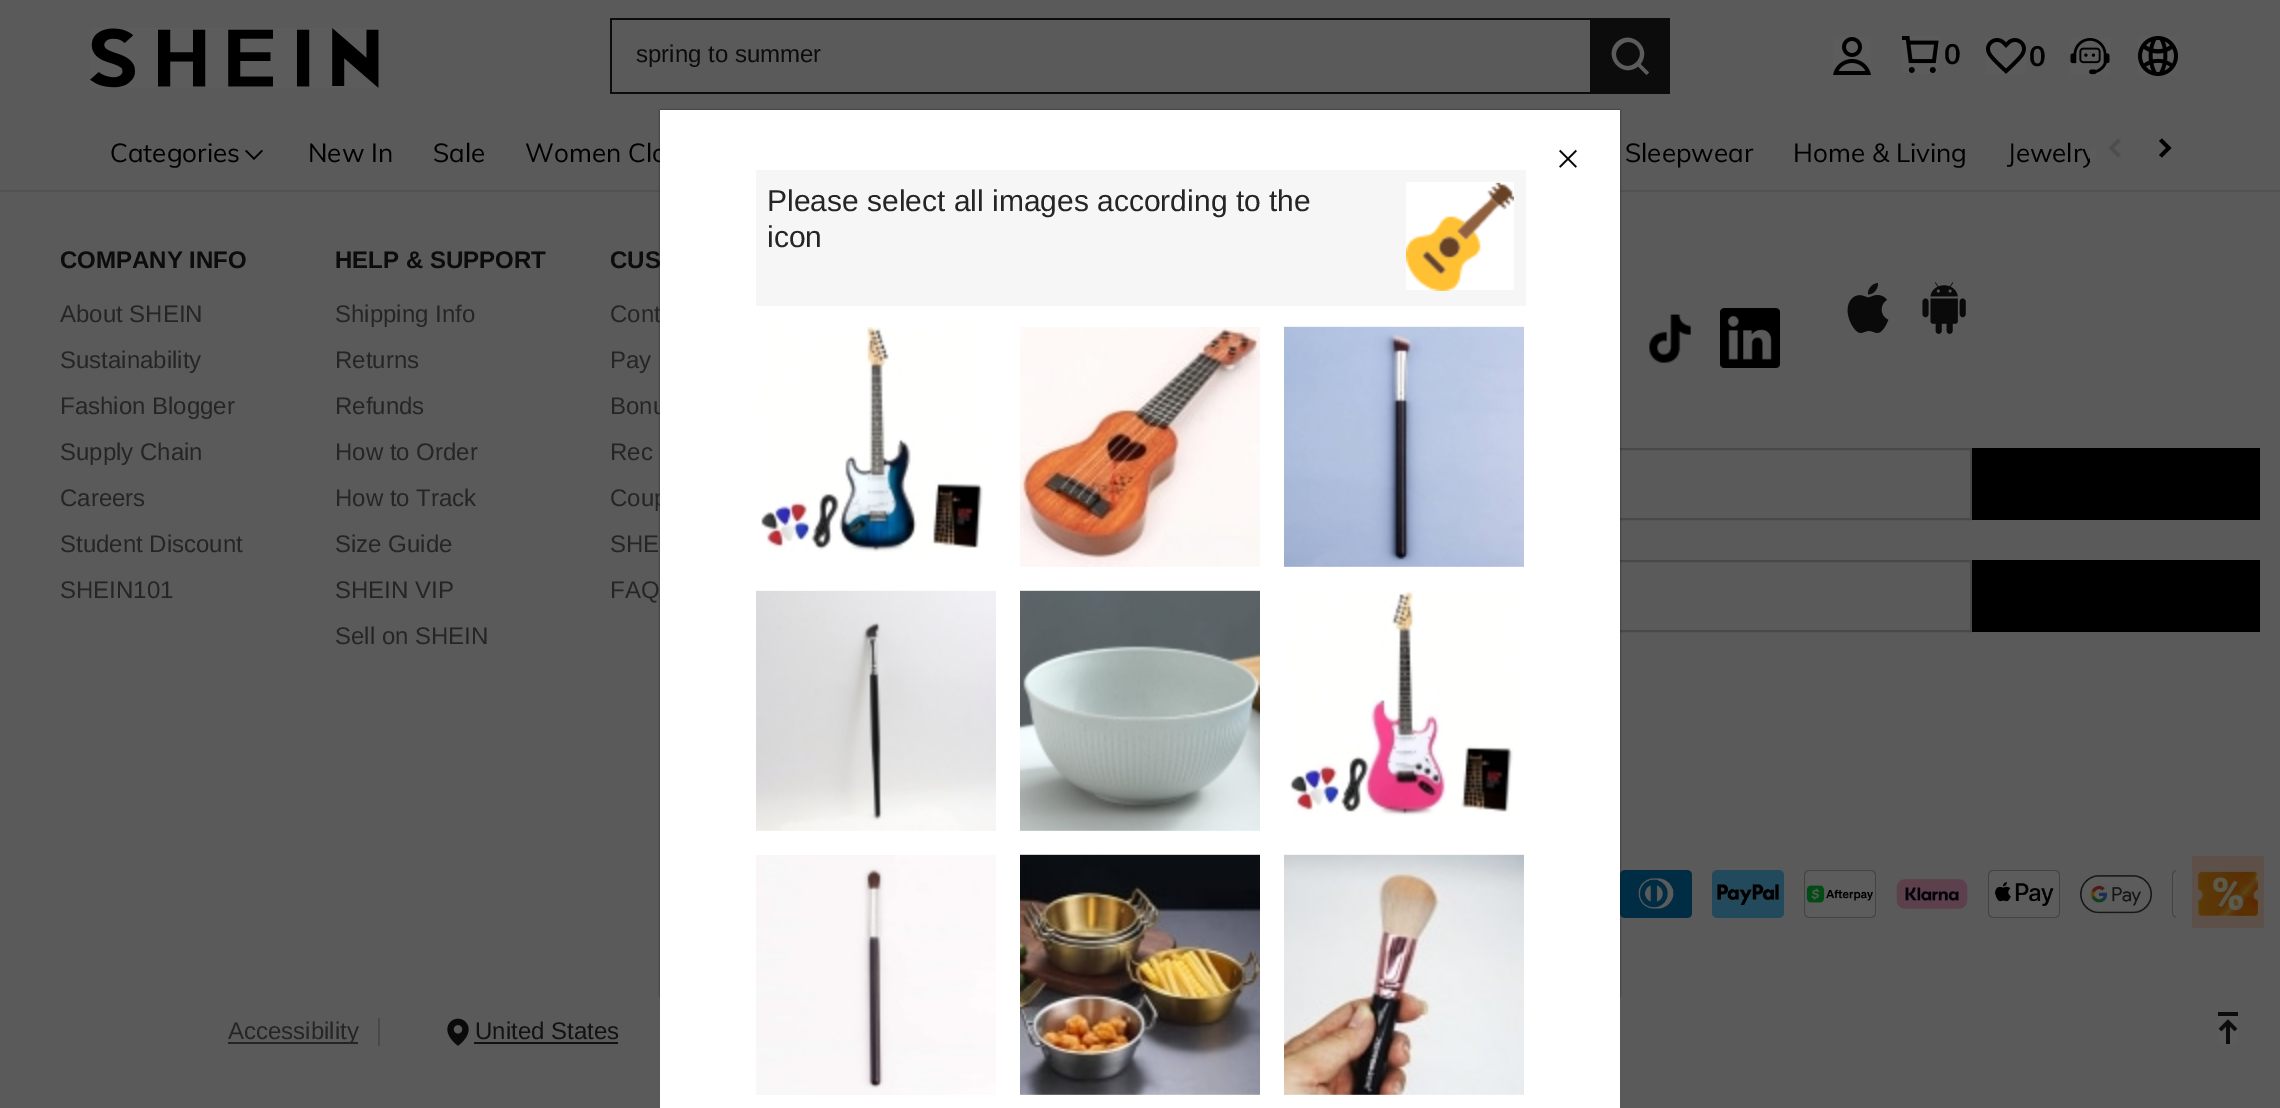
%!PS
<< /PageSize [2280 1108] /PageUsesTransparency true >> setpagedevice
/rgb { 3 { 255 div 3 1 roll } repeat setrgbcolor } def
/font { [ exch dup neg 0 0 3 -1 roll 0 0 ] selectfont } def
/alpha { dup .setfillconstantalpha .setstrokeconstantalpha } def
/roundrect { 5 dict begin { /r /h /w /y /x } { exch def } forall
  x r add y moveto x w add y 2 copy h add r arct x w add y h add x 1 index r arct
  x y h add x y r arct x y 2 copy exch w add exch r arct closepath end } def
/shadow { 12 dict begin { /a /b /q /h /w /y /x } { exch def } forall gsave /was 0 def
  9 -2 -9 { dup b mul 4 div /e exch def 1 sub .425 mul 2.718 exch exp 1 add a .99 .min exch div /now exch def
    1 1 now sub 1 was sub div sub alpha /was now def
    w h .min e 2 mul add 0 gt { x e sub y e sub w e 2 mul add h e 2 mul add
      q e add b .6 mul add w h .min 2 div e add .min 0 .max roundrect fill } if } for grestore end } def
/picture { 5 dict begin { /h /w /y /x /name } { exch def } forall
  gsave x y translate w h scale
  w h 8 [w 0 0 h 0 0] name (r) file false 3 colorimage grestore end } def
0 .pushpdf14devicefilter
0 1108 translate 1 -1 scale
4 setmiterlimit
90 90 90 rgb
0 0 2280 1108 rectfill
(img/1.rgb) 90 28 289 60 picture
[
  [610 18 980 2 12 12 12]
  [610 92 980 2 12 12 12]
  [610 18 2 76 12 12 12]
  [1590 18 80 76 12 12 12]
] { aload pop rgb rectfill } forall
92 92 92 rgb
1616.5 42.5 moveto 1630.5 28.5 1653 48 1640.5 64 curveto 1649 72.5 lineto 1646.5 75 lineto 1638 66.5 lineto 1622 79 1602.5 56.5 1616.5 42.5 curveto closepath 1636.5 45.5 moveto 1625.5 34.5 1608.5 51.5 1619.5 62.5 curveto 1630.5 73.5 1647.5 56.5 1636.5 45.5 curveto closepath eofill
(img/2.rgb) 1833 37 38 38 picture
(img/3.rgb) 1902 36 37 37 picture
(img/4.rgb) 1986 38 40 36 picture
(img/5.rgb) 2070 38 40 37 picture
(img/6.rgb) 2138 36 40 40 picture
82 82 82 rgb
0 190 2280 2 rectfill
0 0 0 rgb
261.5 150 moveto 263 151 lineto 254 160 lineto 245 151 lineto 246.5 150 lineto 254 157.5 lineto closepath fill
78 78 78 rgb
2118 138.5 moveto 2121 141 lineto 2114 148 lineto 2121 155 lineto 2118 157.5 lineto 2108.5 148 lineto closepath eofill
0 0 0 rgb
2159 141 moveto 2162 138.5 lineto 2171.5 148 lineto 2162 157.5 lineto 2159 155 lineto 2166 148 lineto closepath eofill
(img/7.rgb) 1649 314 42 49 picture
(img/8.rgb) 1720 308 60 60 picture
(img/9.rgb) 1847 282 42 52 picture
(img/10.rgb) 1922 282 44 52 picture
73 73 73 rgb
2 setlinewidth
1161 449 810 70 rectstroke
0 0 0 rgb
1972 448 288 72 rectfill
73 73 73 rgb
1321 561 650 70 rectstroke
0 0 0 rgb
1972 560 288 72 rectfill
(img/11.rgb) 1620 870 72 48 picture
(img/12.rgb) 1712 870 72 48 picture
(img/13.rgb) 1804 870 72 48 picture
(img/14.rgb) 1896 879 72 30 picture
(img/15.rgb) 1988 870 72 48 picture
(img/16.rgb) 2080 875 72 39 picture
(img/17.rgb) 2172 870 4 48 picture
73 73 73 rgb
378 1018 2 28 rectfill
37 37 37 rgb
228 1042 130 2 rectfill
(img/18.rgb) 447 1018 22 28 picture
18 18 18 rgb
474 1042 144 2 rectfill
92 80 73 rgb
2192 856 72 72 rectfill
(img/19.rgb) 2198 871 60 45 picture
(img/20.rgb) 2218 1012 20 32 picture
0 0 0 rgb
660 110 960 886 0 1 0.3 shadow
660 110 960 886 0 1 0.3 shadow
/LiberationSans-Regular 24 font
12 12 12 rgb
636 62 moveto (spring to summer) show
/Muli-Bold 28 font
0 0 0 rgb
1944 64 moveto (0) show
2029 66 moveto (0) show
/Muli-Regular 26 font
[
  [(Categories) 110 162]
  [(New In) 308 162]
  [(Sale) 433 162]
  [(Women Clo) 525 162]
  [(Sleepwear) 1625 162]
  [(Home & Living) 1793 162]
  [(Jewelry) 2007 162]
] { aload pop moveto show } forall
92 92 92 rgb
2090 148 6 13 rectfill
/LiberationSans-Bold 24 font
12 12 12 rgb
60 268 moveto (COMPANY INFO) show
/LiberationSans-Regular 24 font
37 37 37 rgb
[
  [(About SHEIN) 60 322]
  [(Sustainability) 60 368]
  [(Fashion Blogger) 60 414]
  [(Supply Chain) 60 460]
  [(Careers) 60 506]
  [(Student Discount) 60 552]
  [(SHEIN101) 60 598]
] { aload pop moveto show } forall
/LiberationSans-Bold 24 font
12 12 12 rgb
335 268 moveto (HELP & SUPPORT) show
/LiberationSans-Regular 24 font
37 37 37 rgb
[
  [(Shipping Info) 335 322]
  [(Returns) 335 368]
  [(Refunds) 335 414]
  [(How to Order) 335 460]
  [(How to Track) 335 506]
  [(Size Guide) 335 552]
  [(SHEIN VIP) 335 598]
  [(Sell on SHEIN) 335 644]
] { aload pop moveto show } forall
/LiberationSans-Bold 24 font
12 12 12 rgb
610 268 moveto (CUS) show
/LiberationSans-Regular 24 font
37 37 37 rgb
[
  [(Cont) 610 322]
  [(Pay) 610 368]
  [(Bonu) 610 414]
  [(Rec) 610 460]
  [(Coup) 610 506]
  [(SHE) 610 552]
  [(FAQ) 610 598]
  [(Accessibility) 228 1039]
] { aload pop moveto show } forall
18 18 18 rgb
475 1039 moveto (United States) show
255 255 255 rgb
660 110 960 998 rectfill
(img/21.rgb) 1559 149 18 19 picture
246 246 246 rgb
756 170 770 136 rectfill
/LiberationSans-Regular 30 font
37 37 37 rgb
767 211 moveto (Please select all images according to the) show
767 247 moveto (icon) show
255 255 255 rgb
1406 182 108 108 rectfill
(img/22.rgb) 1406 182 108 109 picture
(img/23.rgb) 761 327 222 225 picture
(img/24.rgb) 1020 327 240 240 picture
(img/25.rgb) 1284 326 240 241 picture
(img/26.rgb) 756 590 240 241 picture
(img/27.rgb) 1020 590 240 241 picture
(img/28.rgb) 1289 591 224 225 picture
(img/29.rgb) 756 855 240 240 picture
(img/30.rgb) 1020 854 240 241 picture
(img/31.rgb) 1284 854 240 241 picture
.poppdf14devicefilter showpage
